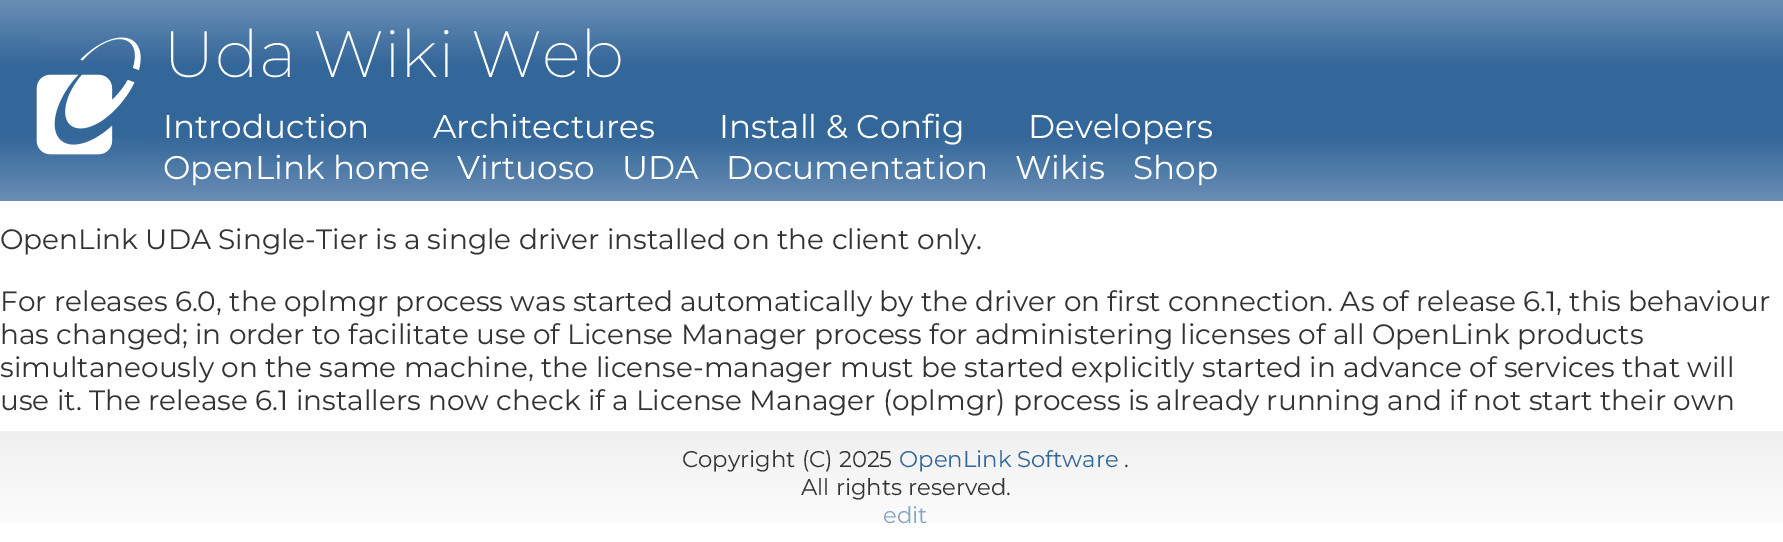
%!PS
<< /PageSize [1783 542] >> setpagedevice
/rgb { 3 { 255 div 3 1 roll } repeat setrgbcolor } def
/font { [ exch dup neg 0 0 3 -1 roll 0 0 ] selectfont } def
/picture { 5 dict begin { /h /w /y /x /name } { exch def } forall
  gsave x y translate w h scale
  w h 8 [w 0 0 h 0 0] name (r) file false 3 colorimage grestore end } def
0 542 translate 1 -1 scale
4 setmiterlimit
255 255 255 rgb
0 0 1783 542 rectfill
gsave 0 0 moveto 1783 0 lineto 1783 201 lineto 0 201 lineto closepath clip newpath
<< /ShadingType 2 /ColorSpace /DeviceRGB /Coords [906 0 906 201] /Extend [true true] /Function << /FunctionType 3 /Domain [0 1] /Functions [<< /FunctionType 2 /Domain [0 1] /C0 [0.412 0.557 0.706] /C1 [0.2 0.4 0.6] /N 1 >> << /FunctionType 2 /Domain [0 1] /C0 [0.2 0.4 0.6] /C1 [0.2 0.4 0.6] /N 1 >> << /FunctionType 2 /Domain [0 1] /C0 [0.2 0.4 0.6] /C1 [0.412 0.557 0.706] /N 1 >>] /Bounds [0.33 0.67] /Encode [0 1 0 1 0 1] >> >> shfill grestore
(img/1.rgb) 36 37 105 118 picture
gsave 0 431 moveto 1783 431 lineto 1783 524 lineto 0 524 lineto closepath clip newpath
<< /ShadingType 2 /ColorSpace /DeviceRGB /Coords [906 430 906 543] /Extend [true true] /Function << /FunctionType 2 /Domain [0 1] /C0 [0.941 0.941 0.941] /C1 [1 1 1] /N 1 >> >> shfill grestore
/Montserrat-ExtraLight 65.25 font
163 77 moveto (Uda Wiki Web) show
/Montserrat-Regular 32.75 font
[
  [(Introduction) 163 138]
  [(Architectures) 433 138]
  [(Install & Config) 719 138]
  [(Developers) 1028 138]
  [(OpenLink home) 163 179]
  [(Virtuoso) 457 179]
  [(UDA) 622 179]
  [(Documentation) 726 179]
  [(Wikis) 1015 179]
  [(Shop) 1133 179]
] { aload pop moveto show } forall
/Montserrat-Regular 28 font
51 51 51 rgb
[
  [(OpenLink UDA Single-Tier is a single driver installed on the client only.) 0 249]
  [(For releases 6.0, the oplmgr process was started automatically by the driver on first connection. As of release 6.1, this behaviour) 0 311]
  [(has changed; in order to facilitate use of License Manager process for administering licenses of all OpenLink products) 0 344]
  [(simultaneously on the same machine, the license-manager must be started explicitly started in advance of services that will) 0 377]
  [(use it. The release 6.1 installers now check if a License Manager \(oplmgr\) process is already running and if not start their own) 0 410]
] { aload pop moveto show } forall
/Montserrat-Regular 22.75 font
682 467 moveto (Copyright \(C\) 2025) show
51 102 153 rgb
899 467 moveto (OpenLink Software) show
51 51 51 rgb
1124 467 moveto (.) show
801 495 moveto (All rights reserved.) show
135 165 194 rgb
883 523 moveto (edit) show
showpage
